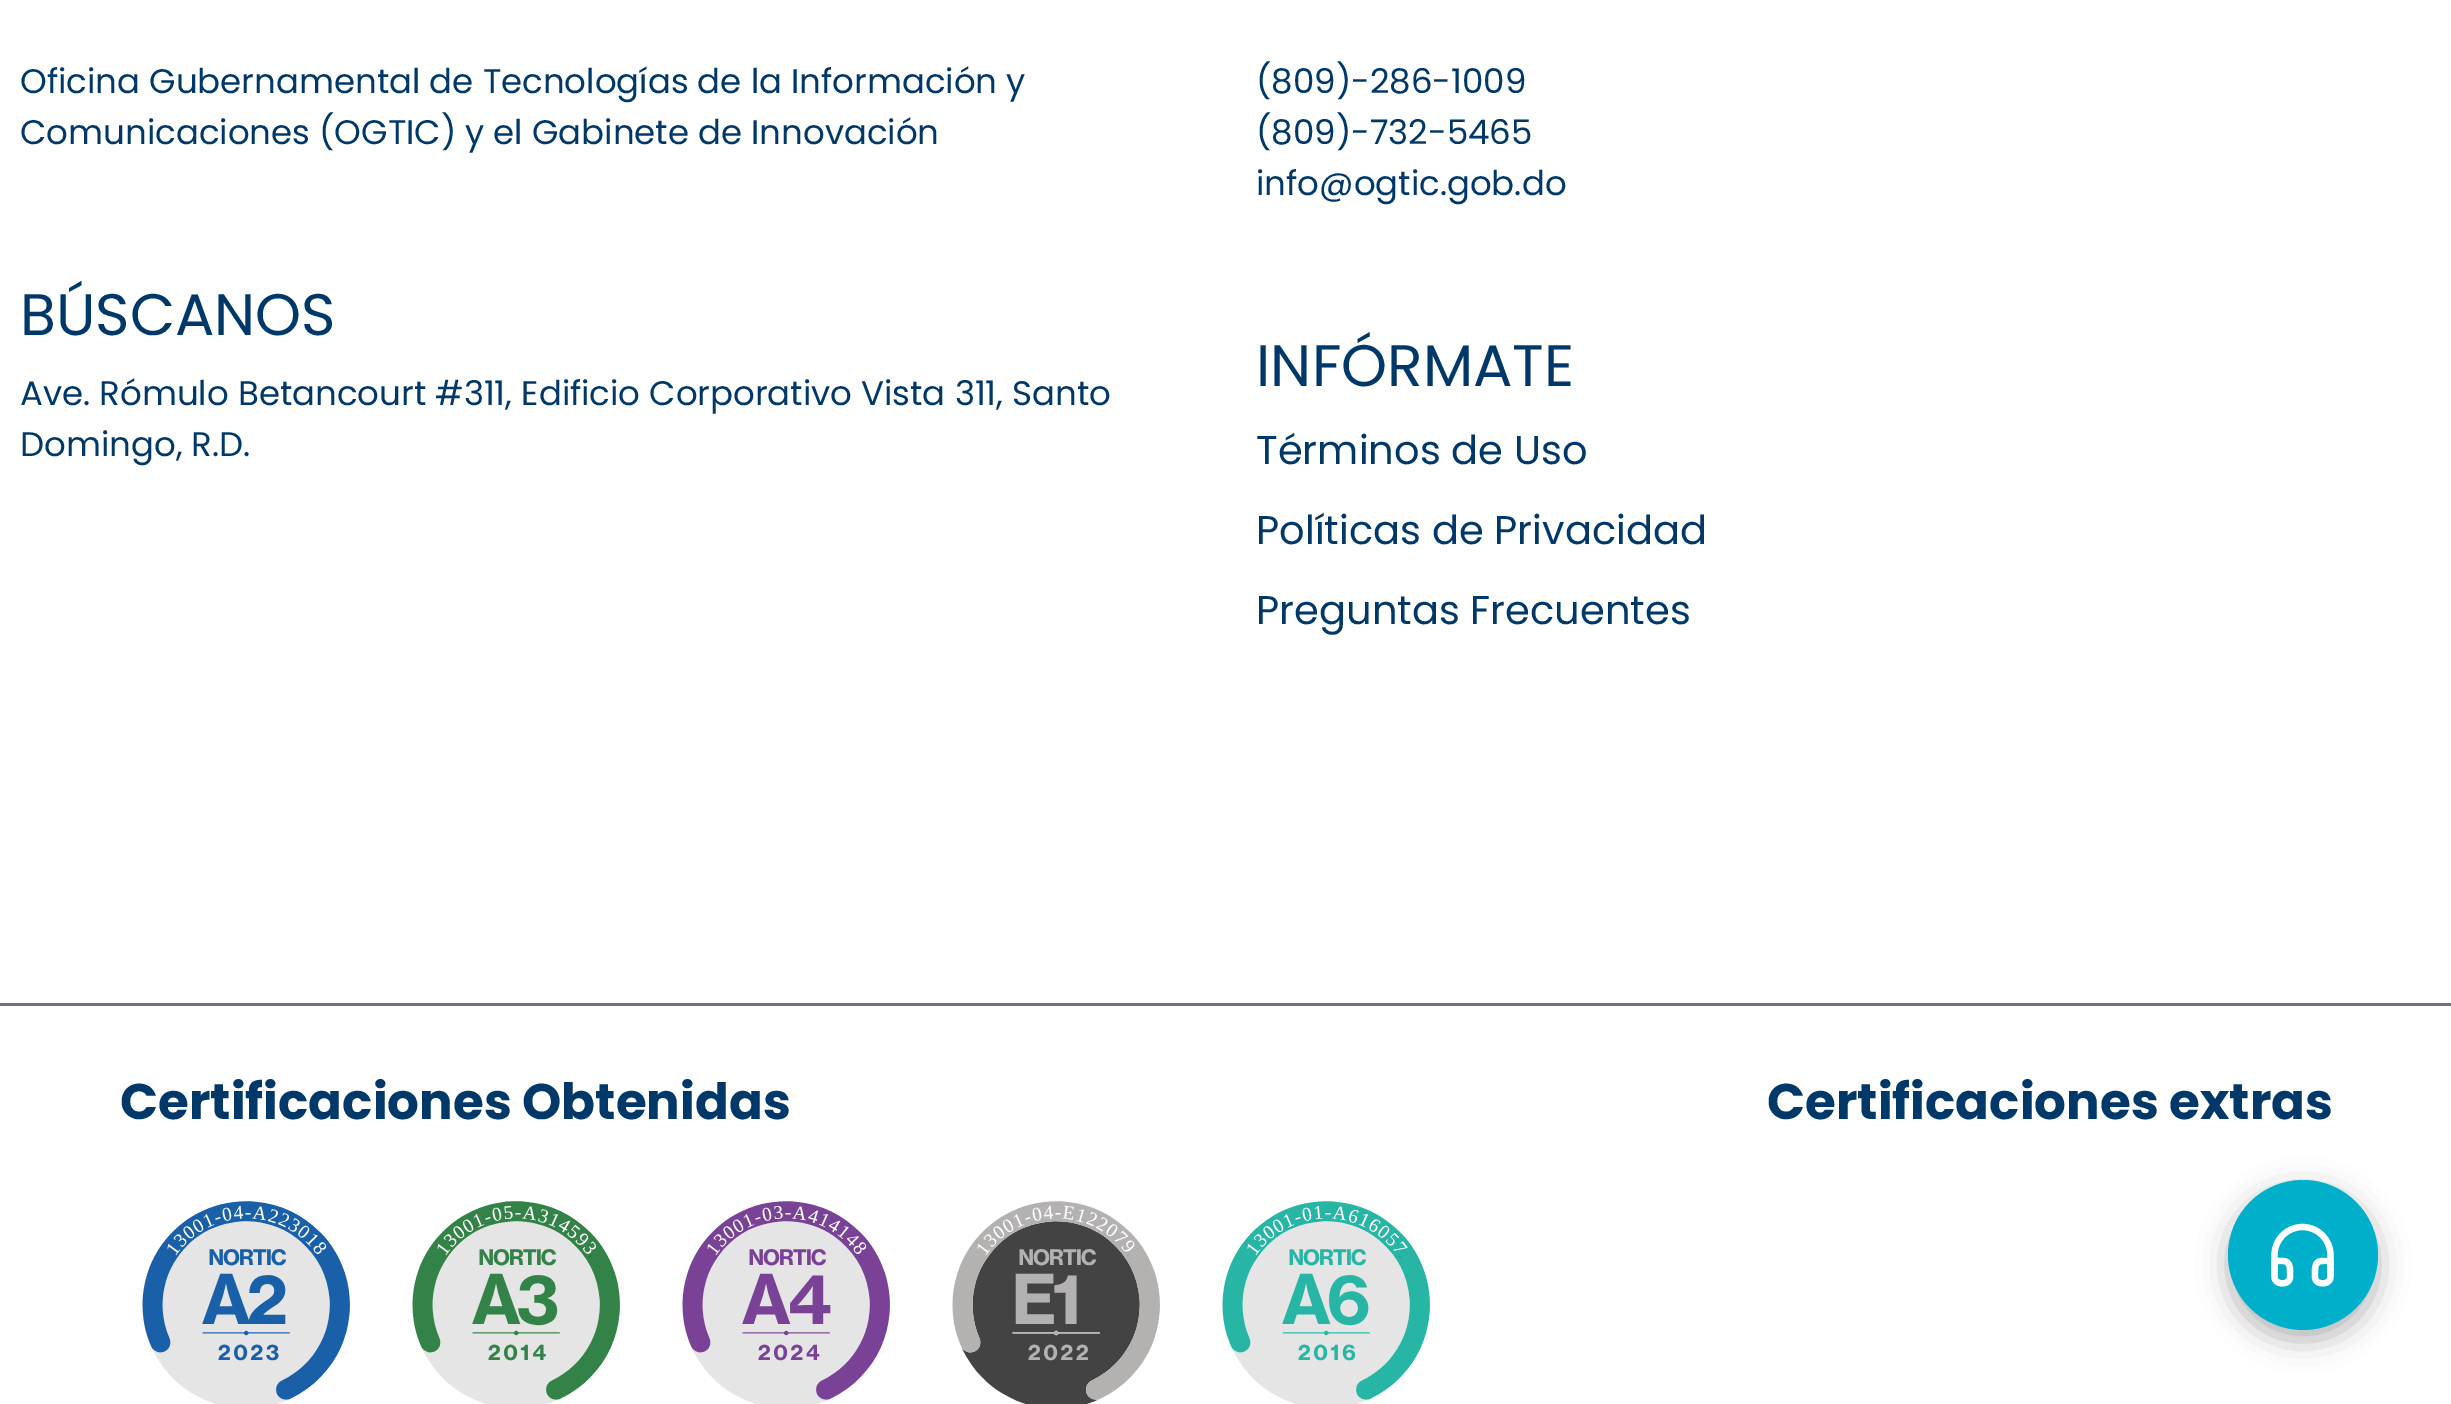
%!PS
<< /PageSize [2451 1404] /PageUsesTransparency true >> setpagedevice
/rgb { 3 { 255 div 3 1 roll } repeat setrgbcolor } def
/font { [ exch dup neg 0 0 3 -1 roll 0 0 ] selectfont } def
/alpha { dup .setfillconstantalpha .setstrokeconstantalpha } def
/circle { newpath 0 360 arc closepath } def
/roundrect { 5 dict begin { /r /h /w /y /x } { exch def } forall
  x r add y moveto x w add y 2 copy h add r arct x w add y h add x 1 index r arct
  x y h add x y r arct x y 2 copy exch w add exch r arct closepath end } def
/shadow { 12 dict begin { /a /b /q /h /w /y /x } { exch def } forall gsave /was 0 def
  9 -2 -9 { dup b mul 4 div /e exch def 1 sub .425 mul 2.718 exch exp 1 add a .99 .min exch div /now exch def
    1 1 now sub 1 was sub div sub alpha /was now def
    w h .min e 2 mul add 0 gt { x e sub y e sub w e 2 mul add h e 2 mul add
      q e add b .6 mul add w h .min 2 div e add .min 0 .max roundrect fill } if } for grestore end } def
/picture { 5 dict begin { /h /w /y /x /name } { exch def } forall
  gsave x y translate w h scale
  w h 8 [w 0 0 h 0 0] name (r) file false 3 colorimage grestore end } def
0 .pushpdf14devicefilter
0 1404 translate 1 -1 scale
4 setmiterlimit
255 255 255 rgb
0 0 2451 1404 rectfill
108 117 125 rgb
0 1003 2451 3 rectfill
(img/1.rgb) 142 1201 208 203 picture
(img/2.rgb) 412 1201 208 203 picture
(img/3.rgb) 682 1201 208 203 picture
(img/4.rgb) 952 1201 208 203 picture
(img/5.rgb) 1222 1201 208 203 picture
0 0 0 rgb
2228 1190 150 150 75 15 0.3 shadow
0 176 203 rgb
2303 1255 75 circle fill
255 255 255 rgb
6.2 setlinewidth
1 setlinecap
1 setlinejoin
2274.5 1274 moveto 2274.5 1255 lineto 2274.5 1239.5 2287 1227 2302.5 1227 curveto 2318 1227 2330.5 1239.5 2330.5 1255 curveto 2330.5 1274 lineto stroke
2330.5 1277 moveto 2330.5 1284.5 2318 1285.5 2315.5 1279.5 curveto 2314.5 1277 2315 1273.5 2315 1270.5 curveto 2315 1259 2321.5 1261 2330.5 1261 curveto closepath 2274.5 1277 moveto 2274.5 1284.5 2287 1285.5 2289.5 1279.5 curveto 2290.5 1277 2290 1273.5 2290 1270.5 curveto 2290 1259 2283.5 1261 2274.5 1261 curveto closepath stroke
/Poppins-Regular 34 font
0 56 105 rgb
20 93 moveto (Oficina Gubernamental de Tecnologías de la Información y) show
20 144 moveto (Comunicaciones \(OGTIC\) y el Gabinete de Innovación) show
/Poppins-Regular 58.5 font
20 335 moveto (BÚSCANOS) show
/Poppins-Regular 34 font
[
  [(Ave. Rómulo Betancourt #311, Edificio Corporativo Vista 311,) 20 405]
  [(Santo) 1012 405]
  [(Domingo, R.D.) 20 456]
  [(\(809\)-286-1009) 1256 93]
  [(\(809\)-732-5465) 1256 144]
  [(info@ogtic.gob.do) 1256 195]
] { aload pop moveto show } forall
/Poppins-Regular 58.5 font
1256 386 moveto (INFÓRMATE) show
/Poppins-Regular 40 font
[
  [(Términos de Uso) 1256 464]
  [(Políticas de Privacidad) 1256 544]
  [(Preguntas Frecuentes) 1256 624]
] { aload pop moveto show } forall
/Poppins-Bold 50 font
120 1119 moveto (Certificaciones Obtenidas) show
1767 1119 moveto (Certificaciones extras) show
.poppdf14devicefilter showpage
